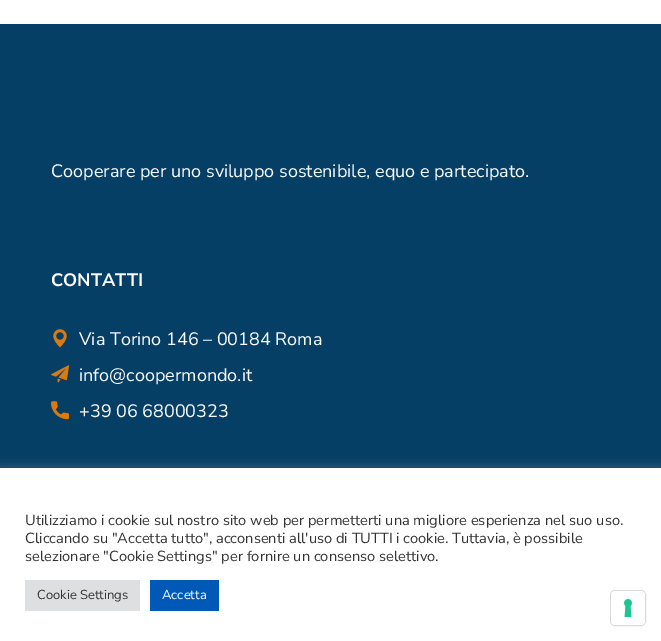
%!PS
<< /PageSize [661 641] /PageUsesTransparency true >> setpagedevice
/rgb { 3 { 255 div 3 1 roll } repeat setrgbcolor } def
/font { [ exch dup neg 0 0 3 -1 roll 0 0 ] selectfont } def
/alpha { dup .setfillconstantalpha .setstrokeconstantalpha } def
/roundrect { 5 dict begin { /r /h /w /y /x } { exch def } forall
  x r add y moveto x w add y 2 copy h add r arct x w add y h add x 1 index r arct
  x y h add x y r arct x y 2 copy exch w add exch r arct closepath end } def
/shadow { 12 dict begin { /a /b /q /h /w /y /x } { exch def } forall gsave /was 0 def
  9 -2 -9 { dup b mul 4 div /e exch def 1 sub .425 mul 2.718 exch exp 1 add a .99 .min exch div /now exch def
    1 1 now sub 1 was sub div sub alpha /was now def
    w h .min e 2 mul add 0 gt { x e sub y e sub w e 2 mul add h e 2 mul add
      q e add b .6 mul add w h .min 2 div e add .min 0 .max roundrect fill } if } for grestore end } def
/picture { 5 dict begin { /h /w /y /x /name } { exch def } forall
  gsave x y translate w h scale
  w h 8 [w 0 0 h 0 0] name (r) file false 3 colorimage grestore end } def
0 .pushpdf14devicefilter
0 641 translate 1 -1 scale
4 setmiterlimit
255 255 255 rgb
0 0 661 641 rectfill
6 63 101 rgb
0 24 661 444 rectfill
(img/1.rgb) 53 329 14 19 picture
(img/2.rgb) 51 365 18 18 picture
(img/3.rgb) 51 401 18 19 picture
172 171 171 rgb
0 467 661 173 0 5 0.3 shadow
[
  [0 468 661 173 255 255 255]
  [25 580 115 31 222 223 224]
  [150 580 69 31 1 89 183]
] { aload pop rgb rectfill } forall
217 217 217 rgb
610.5 590.5 35 35 4.5 roundrect stroke
255 255 255 rgb
611 591 34 34 4 roundrect fill
(img/4.rgb) 624 599 8 18 picture
/NunitoSans-Regular 18 font
51 177 moveto (Cooperare per uno sviluppo sostenibile, equo e partecipato.) show
/NunitoSans-Bold 18 font
51 286 moveto (CONTATTI) show
/NunitoSans-Regular 18 font
[
  [(Via Torino 146 – 00184 Roma) 79 345]
  [(info@coopermondo.it) 79 381]
  [(+39 06 68000323) 79 417]
] { aload pop moveto show } forall
/NunitoSans-Regular 14.65 font
51 51 51 rgb
[
  [(Utilizziamo i cookie sul nostro sito web per permetterti una migliore esperienza nel suo uso.) 25 525]
  [(Cliccando su "Accetta tutto", acconsenti all'uso di TUTTI i cookie. Tuttavia, è possibile) 25 543]
  [(selezionare "Cookie Settings" per fornire un consenso selettivo.) 25 561]
] { aload pop moveto show } forall
/NunitoSans-Regular 13 font
37 599 moveto (Cookie Settings) show
255 255 255 rgb
162 599 moveto (Accetta) show
.poppdf14devicefilter showpage
